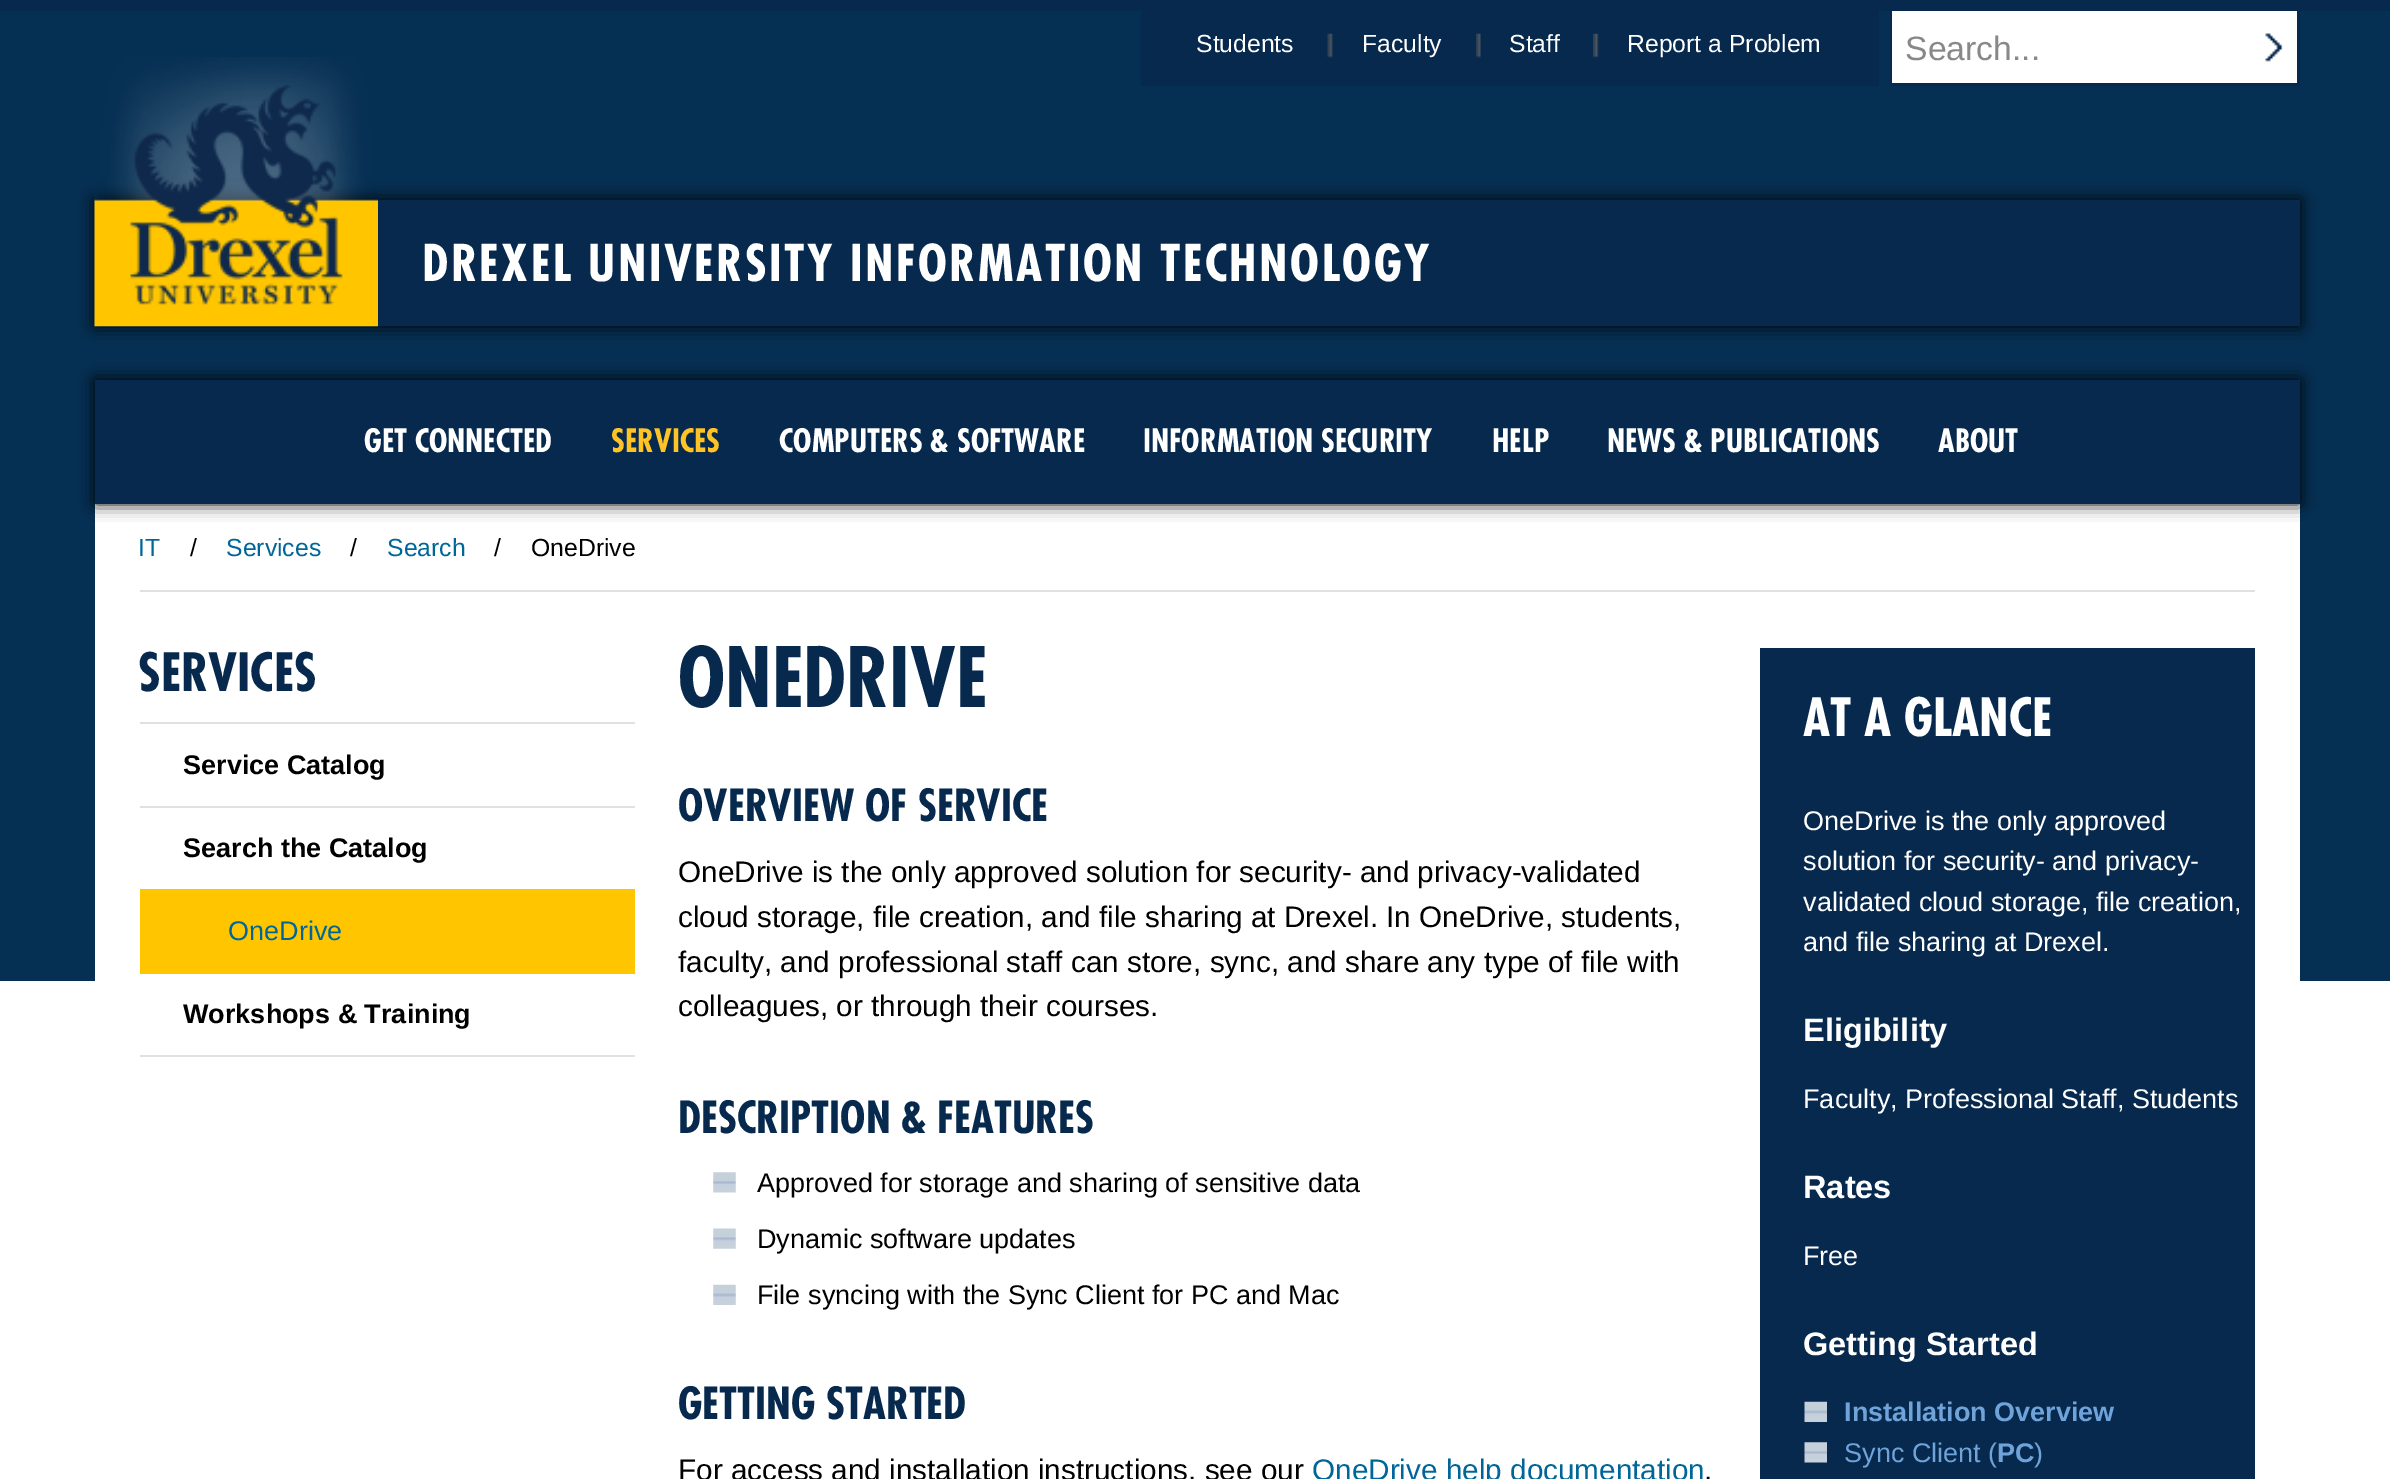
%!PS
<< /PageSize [2390 1479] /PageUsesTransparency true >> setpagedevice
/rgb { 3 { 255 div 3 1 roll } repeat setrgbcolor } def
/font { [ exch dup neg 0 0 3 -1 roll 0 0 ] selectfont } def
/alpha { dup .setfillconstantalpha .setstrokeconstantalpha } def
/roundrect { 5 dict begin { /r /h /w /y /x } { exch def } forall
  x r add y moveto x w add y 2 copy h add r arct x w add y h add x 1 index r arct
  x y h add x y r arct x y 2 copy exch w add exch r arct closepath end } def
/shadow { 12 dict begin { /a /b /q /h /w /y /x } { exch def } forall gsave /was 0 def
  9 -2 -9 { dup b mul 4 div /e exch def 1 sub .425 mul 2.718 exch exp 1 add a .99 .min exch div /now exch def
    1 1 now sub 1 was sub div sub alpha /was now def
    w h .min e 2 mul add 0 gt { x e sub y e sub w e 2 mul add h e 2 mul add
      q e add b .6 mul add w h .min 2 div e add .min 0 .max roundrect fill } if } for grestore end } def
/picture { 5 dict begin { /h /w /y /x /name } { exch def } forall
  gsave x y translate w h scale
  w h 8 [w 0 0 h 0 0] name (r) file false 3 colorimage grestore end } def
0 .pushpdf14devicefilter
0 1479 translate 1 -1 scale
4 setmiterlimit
255 255 255 rgb
0 0 2390 1479 rectfill
[
  [0 11 2390 970 5 47 83]
  [0 0 2390 11 7 41 77]
  [1141 11 738 75 7 41 77]
] { aload pop rgb rectfill } forall
(img/1.rgb) 1327 33 6 25 picture
(img/2.rgb) 1476 33 5 25 picture
(img/3.rgb) 1593 33 6 25 picture
1890 11 410 75 rectfill
255 255 255 rgb
1892 11 405 72 rectfill
(img/4.rgb) 2265 33 18 29 picture
0 0 0 rgb
95 200 2205 126 0 8 1 shadow
7 41 77 rgb
95 200 2205 126 rectfill
(img/5.rgb) 94 57 284 270 picture
255 255 255 rgb
95 504 2205 477 rectfill
0 0 0 rgb
95 380 2205 124 0 8 1 shadow
[
  [95 380 2205 124 7 41 77]
  [140 590 2115 2 225 225 224]
  [140 722 495 2 225 225 224]
  [140 806 495 2 225 225 224]
  [140 889 495 85 255 198 0]
  [140 1055 495 2 225 225 224]
] { aload pop rgb rectfill } forall
(img/6.rgb) 713 1172 23 21 picture
(img/7.rgb) 713 1228 23 21 picture
(img/8.rgb) 713 1284 23 21 picture
7 41 77 rgb
1760 648 495 831 rectfill
(img/9.rgb) 1804 1401 23 21 picture
(img/10.rgb) 1804 1442 23 21 picture
/LiberationSans-Regular 24.75 font
255 255 255 rgb
[
  [(Students) 1196 52]
  [(Faculty) 1362 52]
  [(Staff) 1509 52]
  [(Report a Problem) 1627 52]
] { aload pop moveto show } forall
/LiberationSans-Regular 33.75 font
136 136 136 rgb
1905 60 moveto (Search...) show
/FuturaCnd-Bold 49.5 font
255 255 255 rgb
422 281 moveto 2.5 0 (DREXEL UNIVERSITY INFORMATION TECHNOLOGY) ashow
/FuturaCnd-Bold 31.5 font
364 452 moveto (GET CONNECTED) show
255 195 37 rgb
611 452 moveto (SERVICES) show
255 255 255 rgb
[
  [(COMPUTERS & SOFTWARE) 779 452]
  [(INFORMATION SECURITY) 1143 452]
  [(HELP) 1492 452]
  [(NEWS & PUBLICATIONS) 1607 452]
  [(ABOUT) 1938 452]
] { aload pop moveto show } forall
/LiberationSans-Regular 24.75 font
0 102 153 rgb
138 556 moveto (IT) show
0 0 0 rgb
190 556 moveto (/) show
0 102 153 rgb
226 556 moveto (Services) show
0 0 0 rgb
350 556 moveto (/) show
0 102 153 rgb
387 556 moveto (Search) show
0 0 0 rgb
494 556 moveto (/) show
531 556 moveto (OneDrive) show
/FuturaCnd-Bold 51.5 font
7 41 77 rgb
138 691 moveto (SERVICES) show
/LiberationSans-Bold 27 font
0 0 0 rgb
183 774 moveto (Service Catalog) show
183 857 moveto (Search the Catalog) show
/LiberationSans-Regular 27 font
0 102 153 rgb
228 940 moveto (OneDrive) show
/LiberationSans-Bold 27 font
0 0 0 rgb
183 1023 moveto (Workshops & Training) show
/FuturaCnd-Bold 81 font
7 41 77 rgb
678 707 moveto (ONEDRIVE) show
/FuturaCnd-Bold 43.25 font
678 821 moveto (OVERVIEW OF SERVICE) show
/LiberationSans-Regular 29.7 font
0 0 0 rgb
[
  [(OneDrive is the only approved solution for security- and privacy-validated) 678 882]
  [(cloud storage, file creation, and file sharing at Drexel. In OneDrive, students,) 678 927]
  [(faculty, and professional staff can store, sync, and share any type of file with) 678 972]
  [(colleagues, or through their courses.) 678 1016]
] { aload pop moveto show } forall
/FuturaCnd-Bold 43.25 font
7 41 77 rgb
678 1133 moveto (DESCRIPTION & FEATURES) show
/LiberationSans-Regular 27 font
0 0 0 rgb
[
  [(Approved for storage and sharing of sensitive data) 757 1192]
  [(Dynamic software updates) 757 1248]
  [(File syncing with the Sync Client for PC and Mac) 757 1304]
] { aload pop moveto show } forall
/FuturaCnd-Bold 43.25 font
7 41 77 rgb
678 1419 moveto (GETTING STARTED) show
/LiberationSans-Regular 29.7 font
0 0 0 rgb
678 1480 moveto (For access and installation instructions, see our) show
0 102 153 rgb
1312 1480 moveto (OneDrive help documentation) show
0 0 0 rgb
1704 1480 moveto (.) show
/FuturaCnd-Bold 51.5 font
255 255 255 rgb
1803 736 moveto (AT A GLANCE) show
/LiberationSans-Regular 27 font
[
  [(OneDrive is the only approved) 1803 830]
  [(solution for security- and privacy-) 1803 870]
  [(validated cloud storage, file creation,) 1803 911]
  [(and file sharing at Drexel.) 1803 951]
] { aload pop moveto show } forall
/LiberationSans-Bold 32.5 font
1803 1041 moveto (Eligibility) show
/LiberationSans-Regular 27 font
1803 1108 moveto (Faculty, Professional Staff, Students) show
/LiberationSans-Bold 32.5 font
1803 1198 moveto (Rates) show
/LiberationSans-Regular 27 font
1803 1265 moveto (Free) show
/LiberationSans-Bold 32.5 font
1803 1355 moveto (Getting Started) show
/LiberationSans-Bold 27 font
111 163 218 rgb
1844 1421 moveto (Installation Overview) show
/LiberationSans-Regular 27 font
1844 1462 moveto (Sync Client \() show
/LiberationSans-Bold 27 font
1997 1462 moveto (PC) show
/LiberationSans-Regular 27 font
2034 1462 moveto (\)) show
.poppdf14devicefilter showpage
